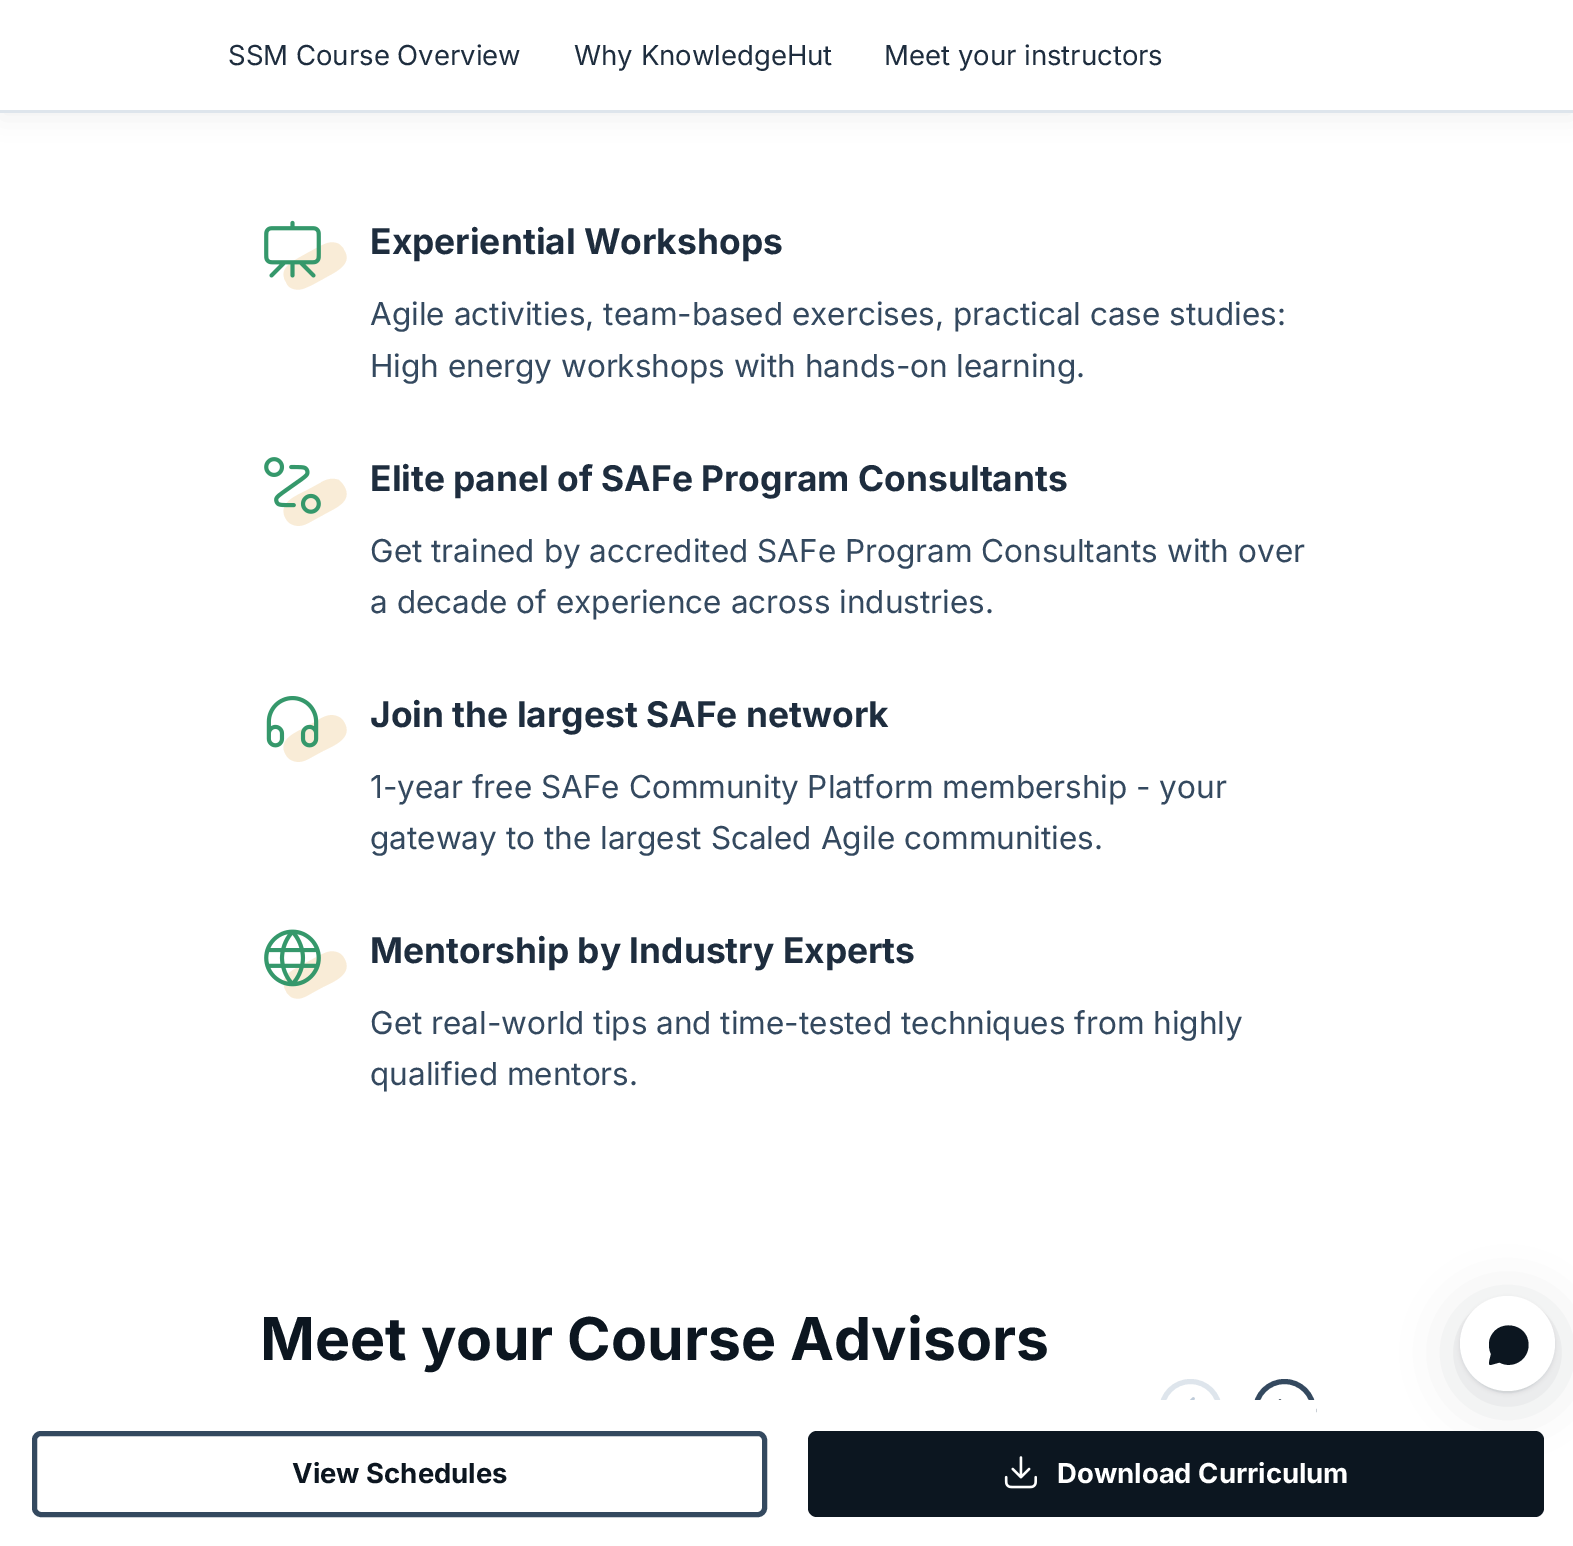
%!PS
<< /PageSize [1573 1546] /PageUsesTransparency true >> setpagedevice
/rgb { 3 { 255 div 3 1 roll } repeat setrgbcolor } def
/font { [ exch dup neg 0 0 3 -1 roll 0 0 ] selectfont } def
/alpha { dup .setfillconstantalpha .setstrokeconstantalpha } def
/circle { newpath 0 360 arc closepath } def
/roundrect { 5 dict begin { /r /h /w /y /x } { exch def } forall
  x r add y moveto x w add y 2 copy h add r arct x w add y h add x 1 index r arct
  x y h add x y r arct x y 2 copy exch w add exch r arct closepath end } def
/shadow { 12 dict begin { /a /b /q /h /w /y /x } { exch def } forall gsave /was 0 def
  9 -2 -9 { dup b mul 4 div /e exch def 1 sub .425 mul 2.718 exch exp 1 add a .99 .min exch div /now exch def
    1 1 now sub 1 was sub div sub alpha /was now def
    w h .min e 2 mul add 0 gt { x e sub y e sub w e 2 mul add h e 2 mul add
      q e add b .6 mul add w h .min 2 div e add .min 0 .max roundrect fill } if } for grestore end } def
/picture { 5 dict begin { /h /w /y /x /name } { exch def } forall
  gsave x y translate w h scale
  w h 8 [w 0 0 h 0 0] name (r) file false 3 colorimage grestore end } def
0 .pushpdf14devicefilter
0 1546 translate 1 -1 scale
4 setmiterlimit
255 255 255 rgb
0 0 1573 1546 rectfill
12 22 32 rgb
0 9 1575 110 0 13.5 0.06 shadow
222 229 236 rgb
0 110 1573 3 rectfill
255 255 255 rgb
0 0 1573 110 rectfill
249 236 215 rgb
286 282 moveto 276 267 297 259 307 253 curveto 318 247 lineto 325 244 331 240 339 244 curveto 341 246 343 247 344 250 curveto 354 265 333 273 323 279 curveto 312 285 lineto 305 288 299 292 291 288 curveto 289 287 287 285 286 282 curveto closepath fill
(img/1.rgb) 264 220 57 58 picture
286 519 moveto 276 503 297 495 307 490 curveto 318 484 lineto 325 480 331 477 339 480 curveto 341 482 343 484 344 486 curveto 354 502 333 509 323 515 curveto 312 521 lineto 305 525 299 528 291 524 curveto 289 523 287 521 286 519 curveto closepath fill
(img/2.rgb) 264 457 57 57 picture
286 755 moveto 276 739 297 732 307 726 curveto 318 720 lineto 325 716 331 713 339 717 curveto 341 718 343 720 344 722 curveto 354 738 333 746 323 751 curveto 312 757 lineto 305 761 299 764 291 760 curveto 289 759 287 757 286 755 curveto closepath fill
(img/3.rgb) 266 696 53 52 picture
286 991 moveto 276 975 297 968 307 962 curveto 318 956 lineto 325 953 331 949 339 953 curveto 341 954 343 956 344 958 curveto 354 974 333 982 323 987 curveto 312 993 lineto 305 997 299 1001 291 997 curveto 289 995 287 994 286 991 curveto closepath fill
(img/4.rgb) 264 929 57 58 picture
222 229 236 rgb
5 setlinewidth
1190.5 1410.5 29 circle stroke
(img/5.rgb) 1189 1397 6 3 picture
52 73 95 rgb
1284.5 1410.5 29 circle stroke
(img/6.rgb) 1278 1399 4 1 picture
12 22 32 rgb
1460 1298 95 95 47.5 2 0.1 shadow
255 255 255 rgb
1159 1400 157 42 rectfill
12 22 32 rgb
808 1431 736 86 9 roundrect fill
1460 1305 95 95 47.5 27 0.16 shadow
255 255 255 rgb
1507.5 1343.5 47.5 circle fill
12 22 32 rgb
1528.5 1345 moveto 1528.5 1322 1495.5 1318 1489.5 1340 curveto 1488.5 1345 1489 1350 1491 1354 curveto 1489.5 1360 lineto 1489.5 1361 1488 1365 1490.5 1365 curveto 1499.5 1362.5 lineto 1512.5 1369.5 1528.5 1360 1528.5 1345 curveto closepath fill
52 73 95 rgb
34.5 1433.5 730 81 6.5 roundrect stroke
(img/7.rgb) 1004 1456 33 33 picture
/Inter-Regular 27.5 font
30 45 62 rgb
[
  [(SSM Course Overview) 228 65]
  [(Why KnowledgeHut) 574 65]
  [(Meet your instructors) 884 65]
] { aload pop moveto show } forall
/Inter-Bold 35.4 font
370 254 moveto (Experiential Workshops) show
/Inter-Regular 31.5 font
52 73 95 rgb
370 325 moveto (Agile activities, team-based exercises, practical case studies:) show
370 377 moveto (High energy workshops with hands-on learning.) show
/Inter-Bold 35.4 font
30 45 62 rgb
370 491 moveto (Elite panel of SAFe Program Consultants) show
/Inter-Regular 31.5 font
52 73 95 rgb
370 562 moveto (Get trained by accredited SAFe Program Consultants with over) show
370 613 moveto (a decade of experience across industries.) show
/Inter-Bold 35.4 font
30 45 62 rgb
370 727 moveto (Join the largest SAFe network) show
/Inter-Regular 31.5 font
52 73 95 rgb
370 798 moveto (1-year free SAFe Community Platform membership - your) show
370 849 moveto (gateway to the largest Scaled Agile communities.) show
/Inter-Bold 35.4 font
30 45 62 rgb
370 963 moveto (Mentorship by Industry Experts) show
/Inter-Regular 31.5 font
52 73 95 rgb
370 1034 moveto (Get real-world tips and time-tested techniques from highly) show
370 1085 moveto (qualified mentors.) show
/Inter-Bold 59 font
12 22 32 rgb
260 1360 moveto (Meet your Course Advisors) show
/Inter-Bold 27.5 font
292 1483 moveto (View Schedules) show
255 255 255 rgb
1057 1483 moveto (Download Curriculum) show
.poppdf14devicefilter showpage
